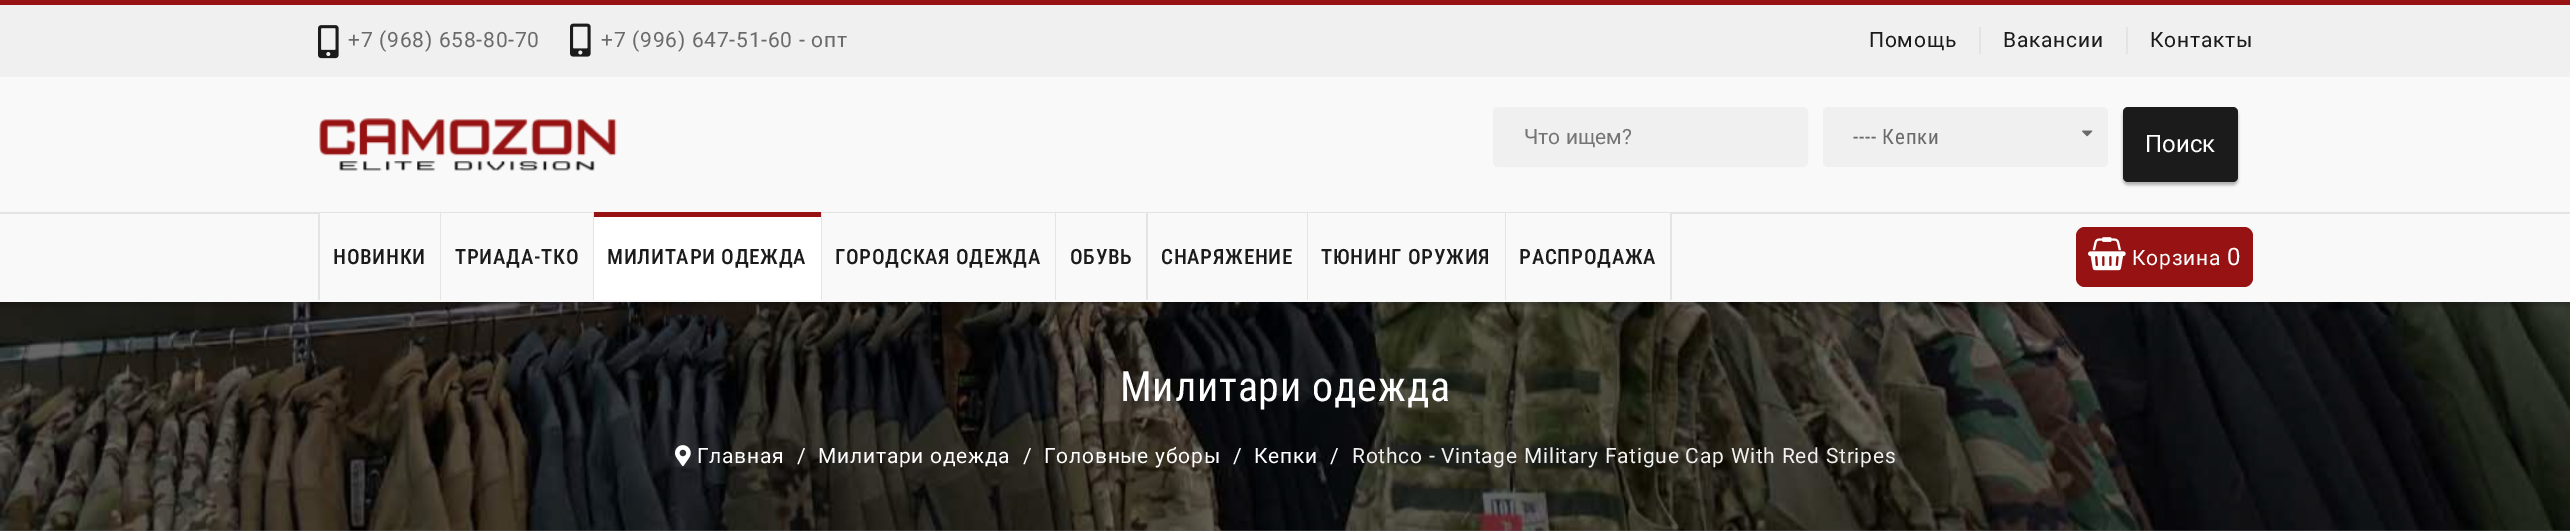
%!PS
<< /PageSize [2570 531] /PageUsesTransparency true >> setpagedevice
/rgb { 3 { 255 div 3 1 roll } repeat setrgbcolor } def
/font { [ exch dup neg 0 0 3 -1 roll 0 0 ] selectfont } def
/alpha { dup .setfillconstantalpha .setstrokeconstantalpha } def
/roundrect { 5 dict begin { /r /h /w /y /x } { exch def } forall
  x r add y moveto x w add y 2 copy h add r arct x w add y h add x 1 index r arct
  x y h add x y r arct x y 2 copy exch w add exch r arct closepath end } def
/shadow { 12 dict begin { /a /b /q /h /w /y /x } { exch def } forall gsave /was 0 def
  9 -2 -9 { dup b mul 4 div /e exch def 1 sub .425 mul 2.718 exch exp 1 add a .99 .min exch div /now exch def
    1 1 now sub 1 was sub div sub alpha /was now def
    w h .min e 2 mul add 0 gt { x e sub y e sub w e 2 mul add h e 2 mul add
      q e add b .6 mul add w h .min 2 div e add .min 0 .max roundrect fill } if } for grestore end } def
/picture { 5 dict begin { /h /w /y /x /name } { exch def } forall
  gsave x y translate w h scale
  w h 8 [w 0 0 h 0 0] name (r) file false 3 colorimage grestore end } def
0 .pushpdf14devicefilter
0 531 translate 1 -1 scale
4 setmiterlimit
249 249 249 rgb
0 0 2570 531 rectfill
240 240 240 rgb
0 5 2570 72 rectfill
151 19 19 rgb
0 0 2570 5 rectfill
(img/1.rgb) 318 25 21 34 picture
(img/2.rgb) 570 23 21 34 picture
228 228 228 rgb
1979 27 2 27 rectfill
2126 27 2 27 rectfill
(img/3.rgb) 319 118 298 53 picture
240 240 240 rgb
1494 108 313 58 4 roundrect gsave fill grestore
2 setlinewidth
stroke
1823 107 285 60 5 roundrect fill
(img/4.rgb) 2082 130 11 7 picture
0 0 0 rgb
2123 110 115 75 5 1.5 0.3 shadow
27 27 27 rgb
2123 107 115 75 5 roundrect fill
(img/6.rgb) 0 302 2570 229 picture
0 0 0 rgb
0 216 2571 90 0 2 0.2 shadow
[
  [0 214 2570 88 249 249 249]
  [0 212 2570 2 228 228 226]
  [440 213 1 87 228 228 226]
  [318 213 2 87 228 228 226]
  [320 213 120 1 249 249 249]
  [593 213 1 87 228 228 226]
  [441 213 152 1 249 249 249]
  [821 213 1 87 228 228 226]
  [594 217 227 83 255 255 255]
  [594 212 227 5 151 19 19]
  [1055 213 1 87 228 228 226]
  [822 213 233 1 249 249 249]
  [1146 213 2 87 228 228 226]
  [1056 213 90 1 249 249 249]
  [1307 213 1 87 228 228 226]
  [1148 213 159 1 249 249 249]
  [1505 213 1 87 228 228 226]
  [1308 213 197 1 249 249 249]
  [1670 213 2 87 228 228 226]
  [1506 213 164 1 249 249 249]
] { aload pop rgb rectfill } forall
151 19 19 rgb
2076 227 177 60 9 roundrect fill
(img/5.rgb) 2088 237 38 34 picture
(img/7.rgb) 675 445 16 22 picture
/Roboto-Regular 21 font
106 106 106 rgb
348 47 moveto 0.75 0 (+7 \(968\) 658-80-70) ashow
601 47 moveto 0.75 0 (+7 \(996\) 647-51-60 - опт) ashow
27 27 27 rgb
1869 47 moveto 0.75 0 (Помощь) ashow
2003 47 moveto 0.75 0 (Вакансии) ashow
2150 47 moveto 0.75 0 (Контакты) ashow
117 117 117 rgb
1524 144 moveto (Что ищем?) show
/RobotoCondensed-Regular 21 font
106 106 106 rgb
1853 144 moveto 0.75 0 (---- Кепки) ashow
/Roboto-Regular 24 font
255 255 255 rgb
2145 152 moveto (Поиск) show
/RobotoCondensed-Medium 21 font
27 27 27 rgb
333 264 moveto 0.75 0 (НОВИНКИ) ashow
455 264 moveto 0.75 0 (ТРИАДА-ТКО) ashow
607 264 moveto 0.75 0 (МИЛИТАРИ ОДЕЖДА) ashow
835 264 moveto 0.75 0 (ГОРОДСКАЯ ОДЕЖДА) ashow
1070 264 moveto 0.75 0 (ОБУВЬ) ashow
1161 264 moveto 0.75 0 (СНАРЯЖЕНИЕ) ashow
1321 264 moveto 0.75 0 (ТЮНИНГ ОРУЖИЯ) ashow
1519 264 moveto 0.75 0 (РАСПРОДАЖА) ashow
/Roboto-Regular 21 font
255 255 255 rgb
2132 265 moveto 0.75 0 (Корзина) ashow
/Roboto-Regular 24 font
2227 265 moveto 0.75 0 (0) ashow
/RobotoCondensed-Regular 42 font
1120 401 moveto 0.75 0 (Милитари одежда) ashow
/Roboto-Regular 21 font
697 463 moveto 0.75 0 (Главная) ashow
797 463 moveto 0.75 0 (/) ashow
818 463 moveto 0.75 0 (Милитари одежда) ashow
1023 463 moveto 0.75 0 (/) ashow
1044 463 moveto 0.75 0 (Головные уборы) ashow
1233 463 moveto 0.75 0 (/) ashow
1254 463 moveto 0.75 0 (Кепки) ashow
1330 463 moveto 0.75 0 (/) ashow
240 240 240 rgb
1352 463 moveto 0.75 0 (Rothco - Vintage Military Fatigue Cap With Red Stripes) ashow
.poppdf14devicefilter showpage
